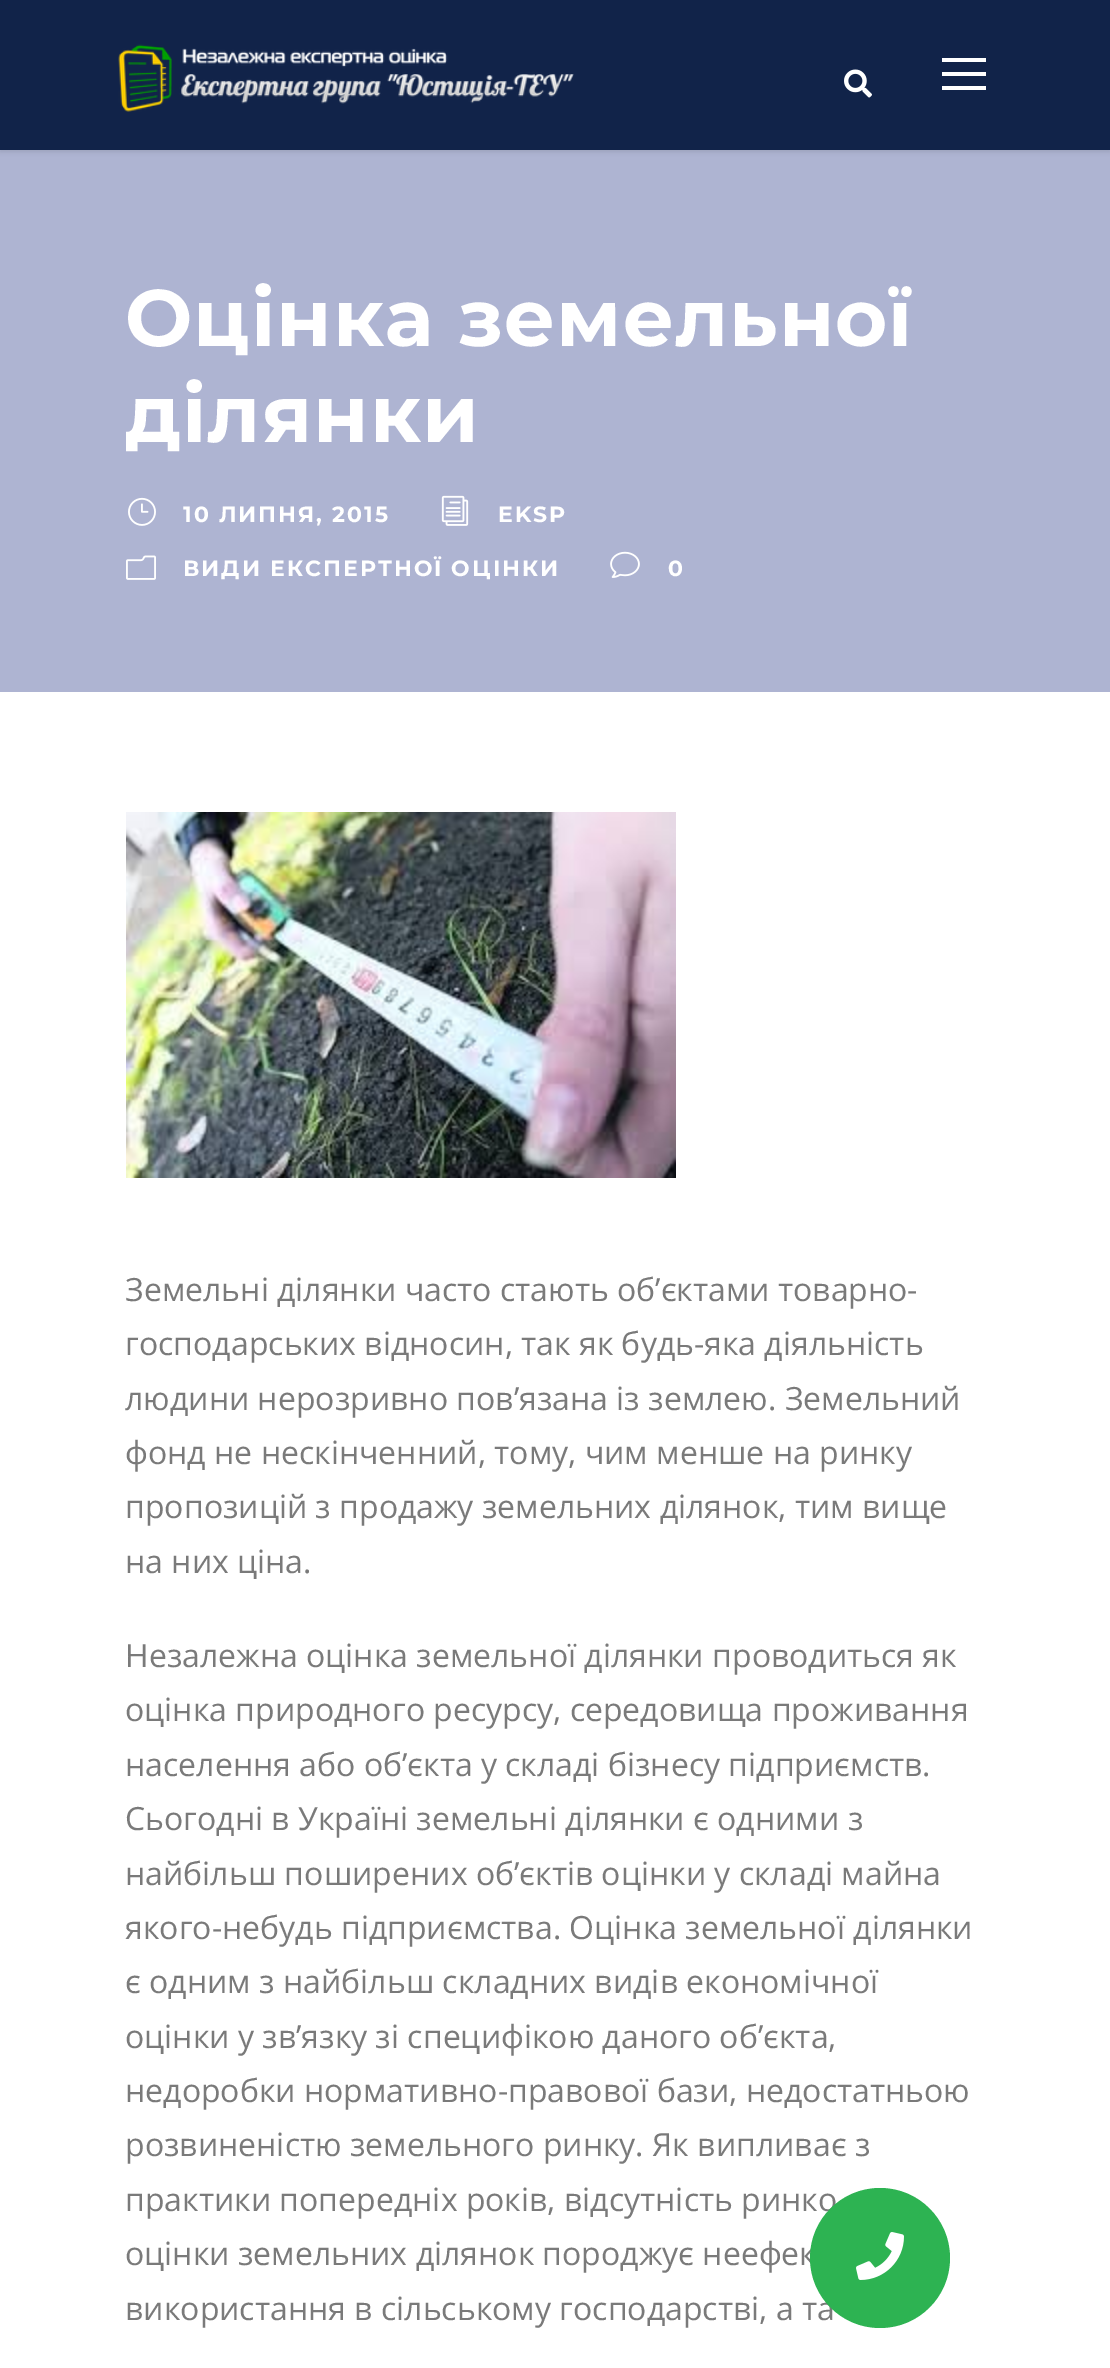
%!PS
<< /PageSize [1110 2368] /PageUsesTransparency true >> setpagedevice
/rgb { 3 { 255 div 3 1 roll } repeat setrgbcolor } def
/font { [ exch dup neg 0 0 3 -1 roll 0 0 ] selectfont } def
/alpha { dup .setfillconstantalpha .setstrokeconstantalpha } def
/circle { newpath 0 360 arc closepath } def
/roundrect { 5 dict begin { /r /h /w /y /x } { exch def } forall
  x r add y moveto x w add y 2 copy h add r arct x w add y h add x 1 index r arct
  x y h add x y r arct x y 2 copy exch w add exch r arct closepath end } def
/shadow { 12 dict begin { /a /b /q /h /w /y /x } { exch def } forall gsave /was 0 def
  9 -2 -9 { dup b mul 4 div /e exch def 1 sub .425 mul 2.718 exch exp 1 add a .99 .min exch div /now exch def
    1 1 now sub 1 was sub div sub alpha /was now def
    w h .min e 2 mul add 0 gt { x e sub y e sub w e 2 mul add h e 2 mul add
      q e add b .6 mul add w h .min 2 div e add .min 0 .max roundrect fill } if } for grestore end } def
/picture { 5 dict begin { /h /w /y /x /name } { exch def } forall
  gsave x y translate w h scale
  w h 8 [w 0 0 h 0 0] name (r) file false 3 colorimage grestore end } def
0 .pushpdf14devicefilter
0 2368 translate 1 -1 scale
4 setmiterlimit
255 255 255 rgb
0 0 1110 2368 rectfill
174 180 210 rgb
0 150 1110 542 rectfill
0 0 0 rgb
0 2 1110 150 0 2 0.1 shadow
17 35 73 rgb
0 0 1110 150 rectfill
(img/1.rgb) 118 44 456 68 picture
(img/2.rgb) 844 69 28 29 picture
[
  [942 58 44 4 255 255 255]
  [942 72 44 4 255 255 255]
  [942 86 44 4 255 255 255]
] { aload pop rgb rectfill } forall
(img/3.rgb) 128 497 28 29 picture
(img/4.rgb) 441 495 28 31 picture
(img/5.rgb) 126 555 30 25 picture
(img/6.rgb) 610 551 30 27 picture
(img/7.rgb) 126 812 550 366 picture
/Montserrat-Bold 80 font
125 346 moveto 1 0 (Оцінка земельної) ashow
gsave
126 270 860 322 rectclip
125 442 moveto 1 0 (ділянки) ashow
grestore
/Montserrat-Bold 22 font
183 522 moveto 2 0 (10 ЛИПНЯ, 2015) ashow
498 522 moveto 2 0 (EKSP) ashow
183 576 moveto 2 0 (ВИДИ ЕКСПЕРТНОЇ ОЦІНКИ) ashow
668 576 moveto 2 0 (0) ashow
/OpenSans-Regular 32 font
122 122 122 rgb
[
  [(Земельні ділянки часто стають об’єктами товарно-) 125 1301]
  [(господарських відносин, так як будь-яка діяльність) 125 1355]
  [(людини нерозривно пов’язана із землею. Земельний) 125 1410]
  [(фонд не нескінченний, тому, чим менше на ринку) 125 1464]
  [(пропозицій з продажу земельних ділянок, тим вище) 125 1518]
  [(на них ціна.) 125 1573]
  [(Незалежна оцінка земельної ділянки проводиться як) 125 1667]
  [(оцінка природного ресурсу, середовища проживання) 125 1721]
  [(населення або об’єкта у складі бізнесу підприємств.) 125 1776]
  [(Сьогодні в Україні земельні ділянки є одними з) 125 1830]
  [(найбільш поширених об’єктів оцінки у складі майна) 125 1885]
  [(якого-небудь підприємства. Оцінка земельної ділянки) 125 1939]
  [(є одним з найбільш складних видів економічної) 125 1993]
  [(оцінки у зв’язку зі специфікою даного об’єкта,) 125 2048]
  [(недоробки нормативно-правової бази, недостатньою) 125 2102]
  [(розвиненістю земельного ринку. Як випливає з) 125 2156]
  [(практики попередніх років, відсутність ринко) 125 2211]
  [(оцінки земельних ділянок породжує неефек) 125 2265]
  [(використання в сільському господарстві, а та) 125 2320]
] { aload pop moveto show } forall
45 179 82 rgb
880 2258 70 circle fill
(img/8.rgb) 856 2232 48 48 picture
.poppdf14devicefilter showpage
